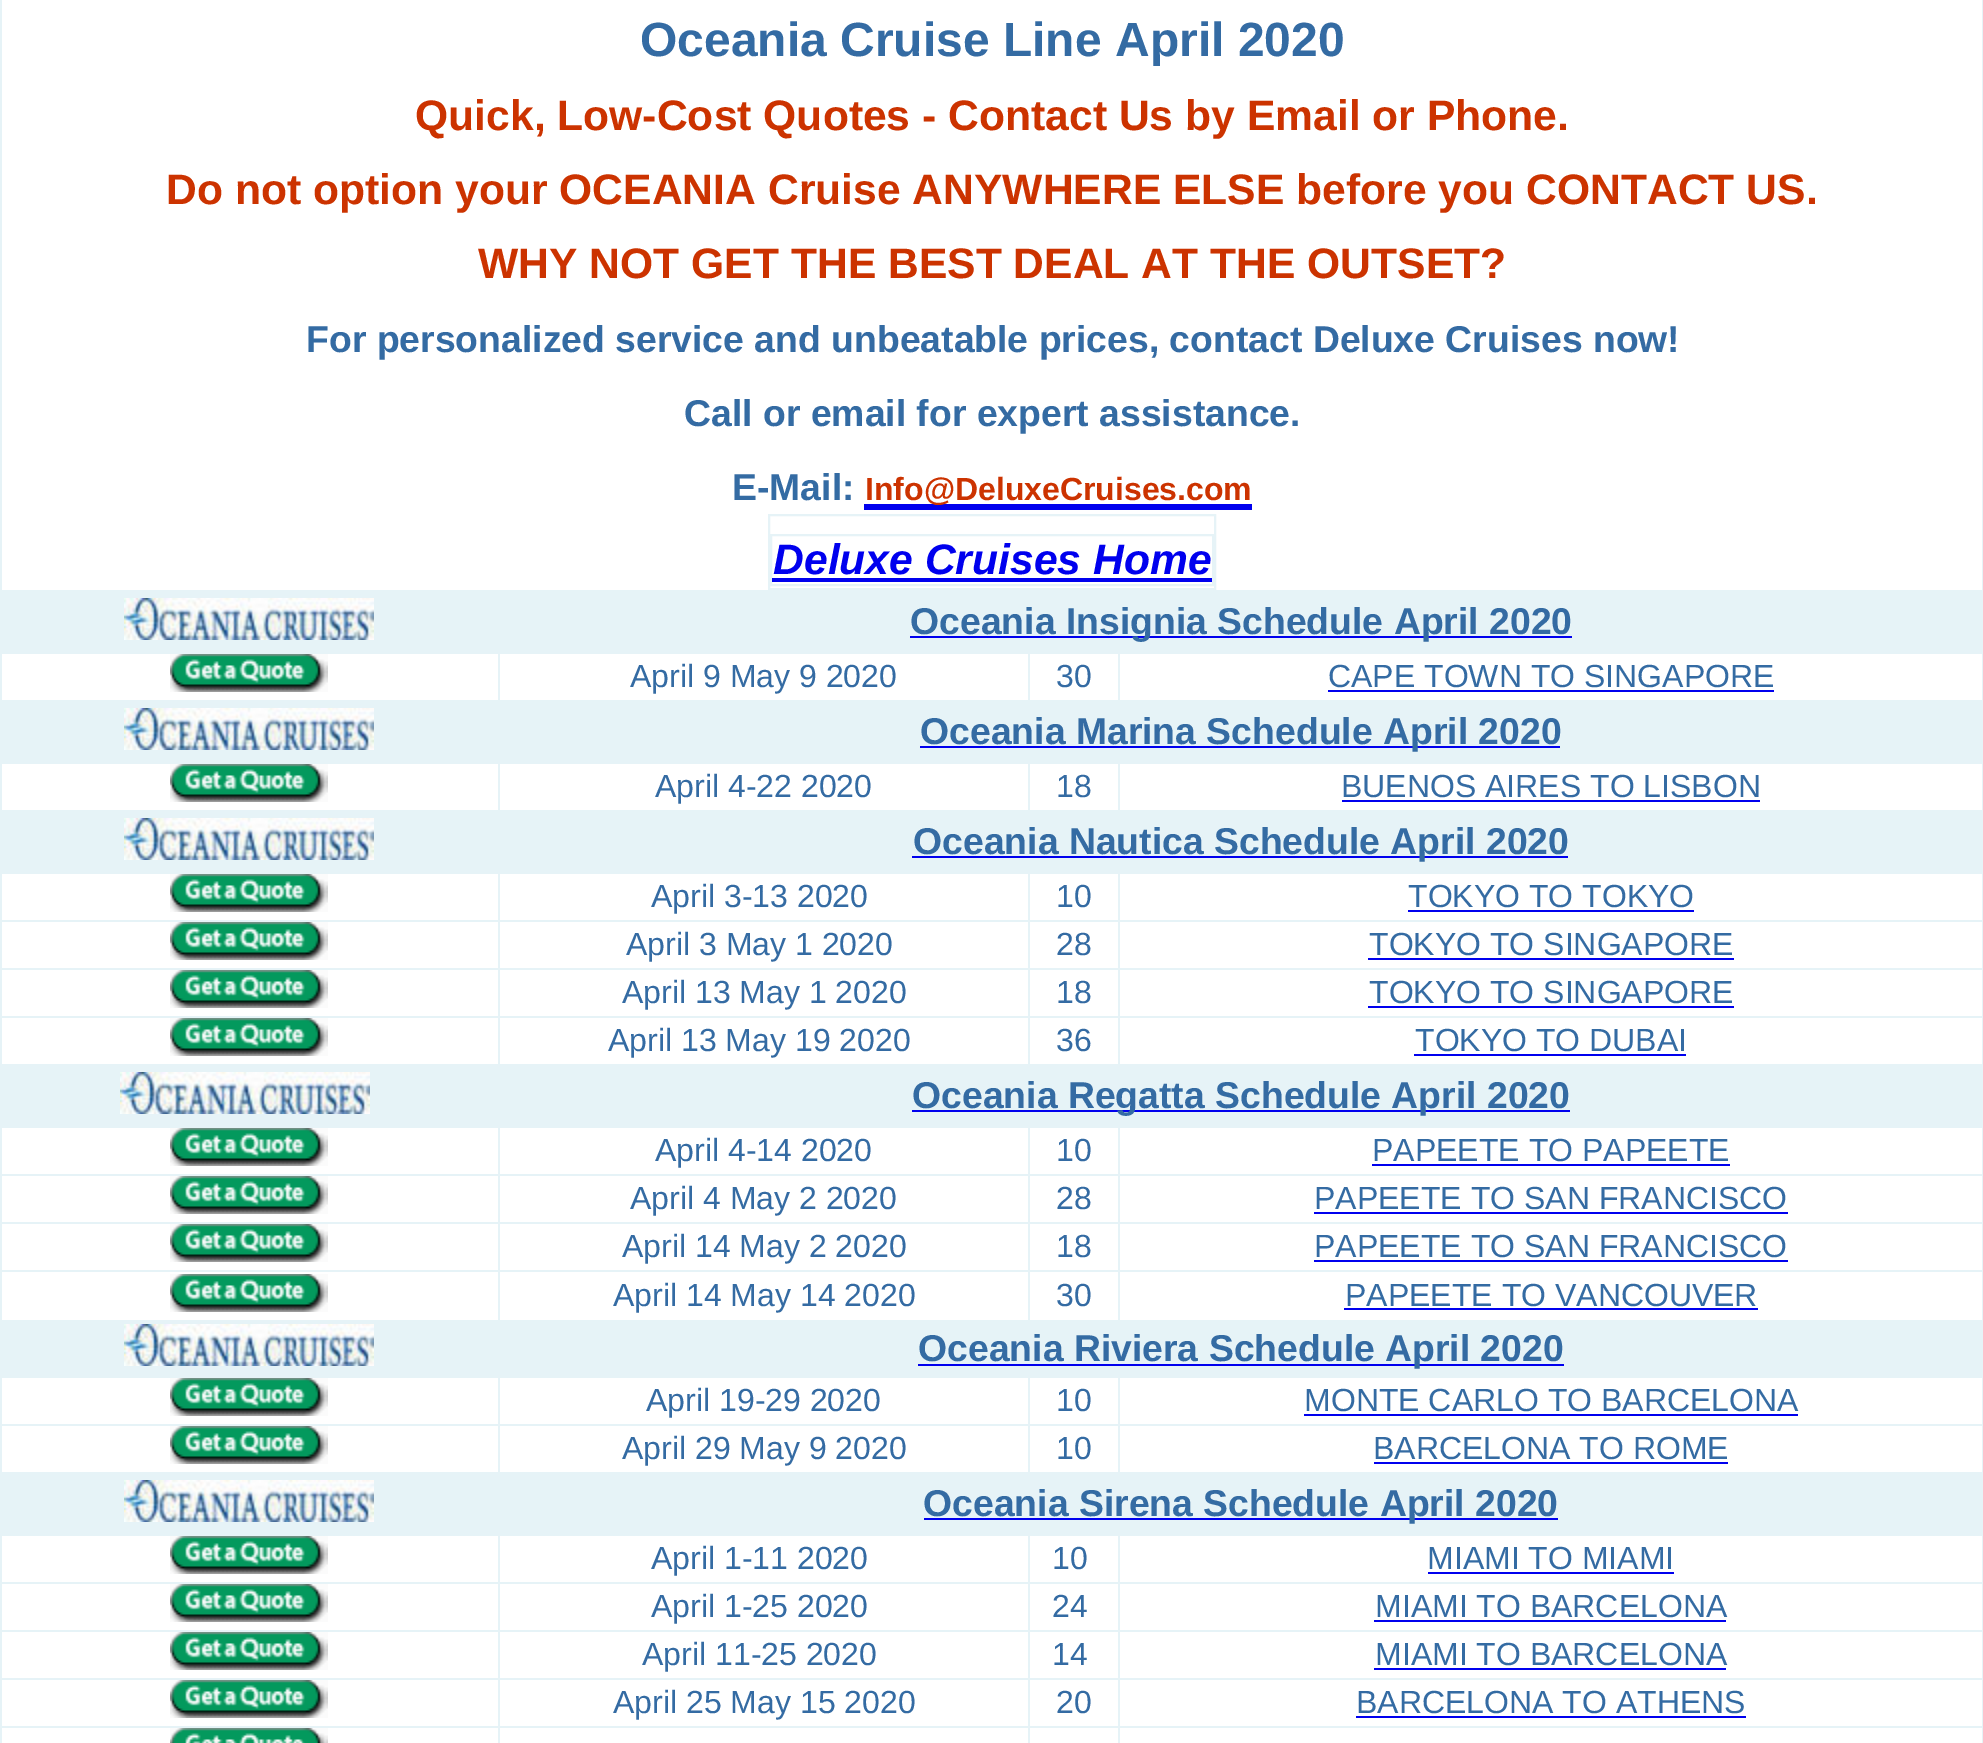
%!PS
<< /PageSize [1983 1743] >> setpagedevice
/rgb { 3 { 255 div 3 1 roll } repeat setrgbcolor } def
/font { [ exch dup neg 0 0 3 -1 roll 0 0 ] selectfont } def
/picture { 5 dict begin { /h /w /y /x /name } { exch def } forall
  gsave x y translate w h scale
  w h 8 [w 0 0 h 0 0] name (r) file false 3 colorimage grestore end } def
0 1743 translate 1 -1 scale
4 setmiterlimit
255 255 255 rgb
0 0 1983 1743 rectfill
[
  [1982 0 1 1743 230 243 247]
  [0 0 2 1743 230 243 247]
  [864 504 388 6 0 0 238]
] { aload pop rgb rectfill } forall
230 243 247 rgb
2 setlinewidth
769 515 446 74 rectstroke
771 535 442 50 rectstroke
0 0 238 rgb
772 578 440 4 rectfill
230 243 247 rgb
2 592 1980 62 rectfill
(img/1.rgb) 124 598 250 42 picture
0 590 1983 2 rectfill
0 0 238 rgb
910 636 662 2 rectfill
(img/2.rgb) 170 654 158 38 picture
[
  [0 700 1983 2 230 243 247]
  [498 652 2 50 230 243 247]
  [1028 652 2 50 230 243 247]
  [1118 652 2 50 230 243 247]
  [1328 690 446 2 0 0 238]
  [2 702 1980 62 230 243 247]
] { aload pop rgb rectfill } forall
(img/1.rgb) 124 708 250 42 picture
0 0 238 rgb
920 746 640 2 rectfill
(img/2.rgb) 170 764 158 38 picture
[
  [0 810 1983 2 230 243 247]
  [498 762 2 50 230 243 247]
  [1028 762 2 50 230 243 247]
  [1118 762 2 50 230 243 247]
  [1342 800 418 2 0 0 238]
  [2 812 1980 62 230 243 247]
] { aload pop rgb rectfill } forall
(img/1.rgb) 124 818 250 42 picture
0 0 238 rgb
912 856 656 2 rectfill
(img/2.rgb) 170 874 158 38 picture
[
  [1118 920 865 2 230 243 247]
  [1118 968 865 2 230 243 247]
  [1118 1016 865 2 230 243 247]
  [0 1064 1983 2 230 243 247]
  [1118 1016 2 50 230 243 247]
  [1028 1016 92 2 230 243 247]
  [1118 968 2 50 230 243 247]
  [1028 968 92 2 230 243 247]
  [1118 920 2 50 230 243 247]
  [1028 920 92 2 230 243 247]
  [1028 1016 2 50 230 243 247]
  [498 1016 532 2 230 243 247]
  [1028 968 2 50 230 243 247]
  [498 968 532 2 230 243 247]
  [1028 920 2 50 230 243 247]
  [498 920 532 2 230 243 247]
  [498 1016 2 50 230 243 247]
  [0 1016 500 2 230 243 247]
  [498 968 2 50 230 243 247]
  [0 968 500 2 230 243 247]
  [498 920 2 50 230 243 247]
  [0 920 500 2 230 243 247]
  [498 872 2 50 230 243 247]
  [1028 872 2 50 230 243 247]
  [1118 872 2 50 230 243 247]
  [1408 910 286 2 0 0 238]
] { aload pop rgb rectfill } forall
(img/2.rgb) 170 922 158 38 picture
1368 958 366 2 rectfill
(img/2.rgb) 170 970 158 38 picture
1368 1006 366 2 rectfill
(img/2.rgb) 170 1018 158 38 picture
1414 1054 272 2 rectfill
230 243 247 rgb
2 1066 1980 62 rectfill
(img/1.rgb) 120 1072 250 42 picture
0 0 238 rgb
912 1110 658 2 rectfill
(img/2.rgb) 170 1128 158 38 picture
[
  [1118 1174 865 2 230 243 247]
  [1118 1222 865 2 230 243 247]
  [1118 1270 865 2 230 243 247]
  [0 1320 1983 2 230 243 247]
  [1118 1270 2 52 230 243 247]
  [1028 1270 92 2 230 243 247]
  [1118 1222 2 50 230 243 247]
  [1028 1222 92 2 230 243 247]
  [1118 1174 2 50 230 243 247]
  [1028 1174 92 2 230 243 247]
  [1028 1270 2 52 230 243 247]
  [498 1270 532 2 230 243 247]
  [1028 1222 2 50 230 243 247]
  [498 1222 532 2 230 243 247]
  [1028 1174 2 50 230 243 247]
  [498 1174 532 2 230 243 247]
  [498 1270 2 52 230 243 247]
  [0 1270 500 2 230 243 247]
  [498 1222 2 50 230 243 247]
  [0 1222 500 2 230 243 247]
  [498 1174 2 50 230 243 247]
  [0 1174 500 2 230 243 247]
  [498 1126 2 50 230 243 247]
  [1028 1126 2 50 230 243 247]
  [1118 1126 2 50 230 243 247]
  [1372 1164 358 2 0 0 238]
] { aload pop rgb rectfill } forall
(img/2.rgb) 170 1176 158 38 picture
1314 1212 474 2 rectfill
(img/2.rgb) 170 1224 158 38 picture
1314 1260 474 2 rectfill
(img/2.rgb) 170 1274 158 38 picture
1344 1308 414 2 rectfill
230 243 247 rgb
2 1322 1980 56 rectfill
(img/1.rgb) 124 1324 250 42 picture
0 0 238 rgb
918 1364 646 2 rectfill
(img/2.rgb) 170 1378 158 38 picture
[
  [1118 1424 865 2 230 243 247]
  [0 1472 1983 2 230 243 247]
  [1118 1424 2 50 230 243 247]
  [1028 1424 92 2 230 243 247]
  [1028 1424 2 50 230 243 247]
  [498 1424 532 2 230 243 247]
  [498 1424 2 50 230 243 247]
  [0 1424 500 2 230 243 247]
  [498 1376 2 50 230 243 247]
  [1028 1376 2 50 230 243 247]
  [1118 1376 2 50 230 243 247]
  [1304 1414 494 2 0 0 238]
] { aload pop rgb rectfill } forall
(img/2.rgb) 170 1426 158 38 picture
1374 1462 354 2 rectfill
230 243 247 rgb
2 1474 1980 62 rectfill
(img/1.rgb) 124 1480 250 42 picture
0 0 238 rgb
924 1518 634 2 rectfill
(img/2.rgb) 170 1536 158 38 picture
[
  [1118 1582 865 2 230 243 247]
  [1118 1630 865 2 230 243 247]
  [1118 1678 865 2 230 243 247]
  [1118 1726 865 2 230 243 247]
  [1118 1726 2 17 230 243 247]
  [1028 1726 92 2 230 243 247]
  [1118 1678 2 50 230 243 247]
  [1028 1678 92 2 230 243 247]
  [1118 1630 2 50 230 243 247]
  [1028 1630 92 2 230 243 247]
  [1118 1582 2 50 230 243 247]
  [1028 1582 92 2 230 243 247]
  [1028 1726 2 17 230 243 247]
  [498 1726 532 2 230 243 247]
  [1028 1678 2 50 230 243 247]
  [498 1678 532 2 230 243 247]
  [1028 1630 2 50 230 243 247]
  [498 1630 532 2 230 243 247]
  [1028 1582 2 50 230 243 247]
  [498 1582 532 2 230 243 247]
  [498 1726 2 17 230 243 247]
  [0 1726 500 2 230 243 247]
  [498 1678 2 50 230 243 247]
  [0 1678 500 2 230 243 247]
  [498 1630 2 50 230 243 247]
  [0 1630 500 2 230 243 247]
  [498 1582 2 50 230 243 247]
  [0 1582 500 2 230 243 247]
  [498 1534 2 50 230 243 247]
  [1028 1534 2 50 230 243 247]
  [1118 1534 2 50 230 243 247]
  [1428 1572 246 2 0 0 238]
] { aload pop rgb rectfill } forall
(img/2.rgb) 170 1584 158 38 picture
1374 1620 352 2 rectfill
(img/2.rgb) 170 1632 158 38 picture
1374 1668 352 2 rectfill
(img/2.rgb) 170 1680 158 38 picture
1356 1716 390 2 rectfill
(img/3.rgb) 170 1728 158 15 picture
/LiberationSans-Bold 48 font
52 107 163 rgb
640 56 moveto (Oceania Cruise Line April 2020) show
/LiberationSans-Bold 42.65 font
204 51 0 rgb
[
  [(Quick, Low-Cost Quotes - Contact Us by Email or Phone.) 415 130]
  [(Do not option your OCEANIA Cruise ANYWHERE ELSE before you CONTACT US.) 166 204]
  [(WHY NOT GET THE BEST DEAL AT THE OUTSET?) 478 278]
] { aload pop moveto show } forall
/LiberationSans-Bold 37.35 font
52 107 163 rgb
[
  [(For personalized service and unbeatable prices, contact Deluxe Cruises now!) 306 352]
  [(Call or email for expert assistance.) 684 426]
  [(E-Mail:) 732 500]
] { aload pop moveto show } forall
/LiberationSans-Bold 32 font
204 51 0 rgb
865 500 moveto (Info@DeluxeCruises.com) show
/LiberationSans-BoldItalic 42.65 font
0 0 238 rgb
773 574 moveto (Deluxe Cruises Home) show
/LiberationSans-Bold 37.35 font
52 107 163 rgb
910 634 moveto (Oceania Insignia Schedule April 2020) show
/LiberationSans-Regular 32 font
[
  [(April 9 May 9 2020) 630 687]
  [(30) 1056 687]
  [(CAPE TOWN TO SINGAPORE) 1328 687]
] { aload pop moveto show } forall
/LiberationSans-Bold 37.35 font
920 744 moveto (Oceania Marina Schedule April 2020) show
/LiberationSans-Regular 32 font
[
  [(April 4-22 2020) 655 797]
  [(18) 1056 797]
  [(BUENOS AIRES TO LISBON) 1341 797]
] { aload pop moveto show } forall
/LiberationSans-Bold 37.35 font
913 854 moveto (Oceania Nautica Schedule April 2020) show
/LiberationSans-Regular 32 font
[
  [(April 3-13 2020) 651 907]
  [(10) 1056 907]
  [(TOKYO TO TOKYO) 1408 907]
  [(April 3 May 1 2020) 626 955]
  [(28) 1056 955]
  [(TOKYO TO SINGAPORE) 1369 955]
  [(April 13 May 1 2020) 622 1003]
  [(18) 1056 1003]
  [(TOKYO TO SINGAPORE) 1369 1003]
  [(April 13 May 19 2020) 608 1051]
  [(36) 1056 1051]
  [(TOKYO TO DUBAI) 1415 1051]
] { aload pop moveto show } forall
/LiberationSans-Bold 37.35 font
912 1108 moveto (Oceania Regatta Schedule April 2020) show
/LiberationSans-Regular 32 font
[
  [(April 4-14 2020) 655 1161]
  [(10) 1056 1161]
  [(PAPEETE TO PAPEETE) 1372 1161]
  [(April 4 May 2 2020) 630 1209]
  [(28) 1056 1209]
  [(PAPEETE TO SAN FRANCISCO) 1314 1209]
  [(April 14 May 2 2020) 622 1257]
  [(18) 1056 1257]
  [(PAPEETE TO SAN FRANCISCO) 1314 1257]
  [(April 14 May 14 2020) 613 1306]
  [(30) 1056 1306]
  [(PAPEETE TO VANCOUVER) 1345 1306]
] { aload pop moveto show } forall
/LiberationSans-Bold 37.35 font
918 1361 moveto (Oceania Riviera Schedule April 2020) show
/LiberationSans-Regular 32 font
[
  [(April 19-29 2020) 646 1411]
  [(10) 1056 1411]
  [(MONTE CARLO TO BARCELONA) 1304 1411]
  [(April 29 May 9 2020) 622 1459]
  [(10) 1056 1459]
  [(BARCELONA TO ROME) 1373 1459]
] { aload pop moveto show } forall
/LiberationSans-Bold 37.35 font
923 1516 moveto (Oceania Sirena Schedule April 2020) show
/LiberationSans-Regular 32 font
[
  [(April 1-11 2020) 651 1569]
  [(10) 1052 1569]
  [(MIAMI TO MIAMI) 1427 1569]
  [(April 1-25 2020) 651 1617]
  [(24) 1052 1617]
  [(MIAMI TO BARCELONA) 1375 1617]
  [(April 11-25 2020) 642 1665]
  [(14) 1052 1665]
  [(MIAMI TO BARCELONA) 1375 1665]
  [(April 25 May 15 2020) 613 1713]
  [(20) 1056 1713]
  [(BARCELONA TO ATHENS) 1356 1713]
] { aload pop moveto show } forall
showpage
